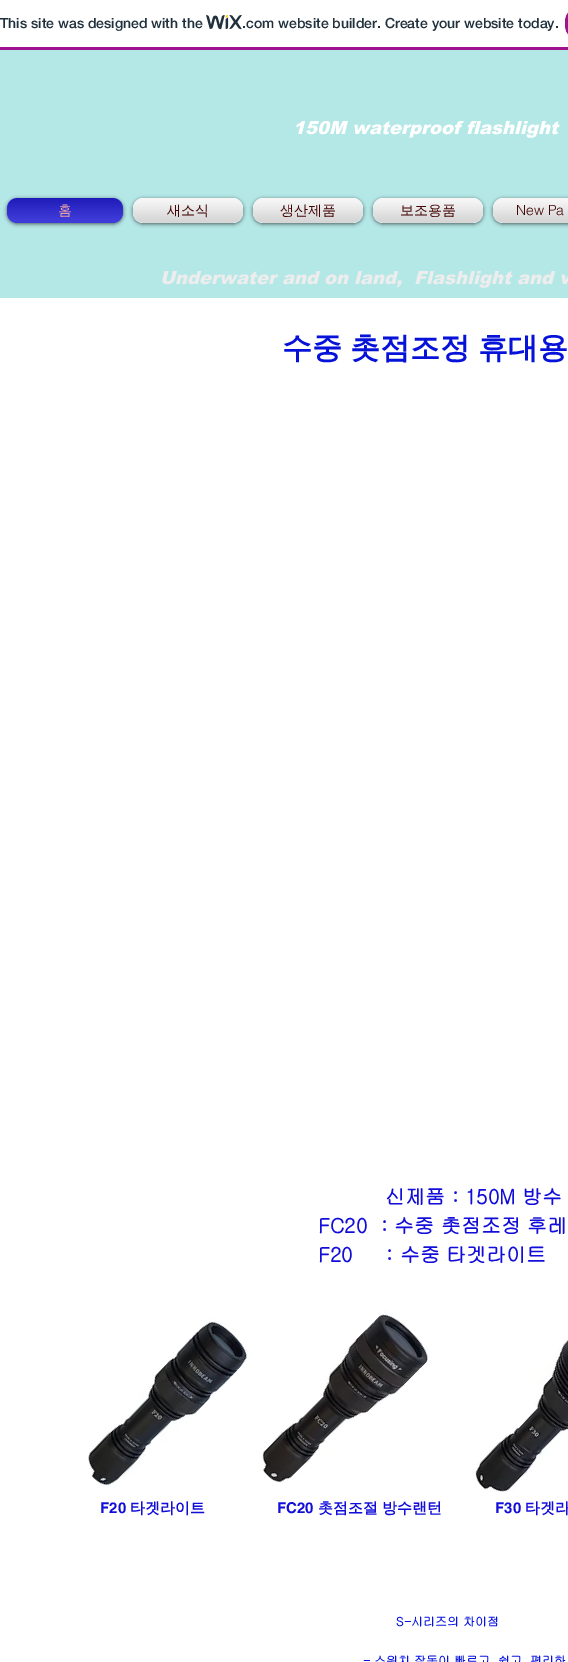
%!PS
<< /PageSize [568 1662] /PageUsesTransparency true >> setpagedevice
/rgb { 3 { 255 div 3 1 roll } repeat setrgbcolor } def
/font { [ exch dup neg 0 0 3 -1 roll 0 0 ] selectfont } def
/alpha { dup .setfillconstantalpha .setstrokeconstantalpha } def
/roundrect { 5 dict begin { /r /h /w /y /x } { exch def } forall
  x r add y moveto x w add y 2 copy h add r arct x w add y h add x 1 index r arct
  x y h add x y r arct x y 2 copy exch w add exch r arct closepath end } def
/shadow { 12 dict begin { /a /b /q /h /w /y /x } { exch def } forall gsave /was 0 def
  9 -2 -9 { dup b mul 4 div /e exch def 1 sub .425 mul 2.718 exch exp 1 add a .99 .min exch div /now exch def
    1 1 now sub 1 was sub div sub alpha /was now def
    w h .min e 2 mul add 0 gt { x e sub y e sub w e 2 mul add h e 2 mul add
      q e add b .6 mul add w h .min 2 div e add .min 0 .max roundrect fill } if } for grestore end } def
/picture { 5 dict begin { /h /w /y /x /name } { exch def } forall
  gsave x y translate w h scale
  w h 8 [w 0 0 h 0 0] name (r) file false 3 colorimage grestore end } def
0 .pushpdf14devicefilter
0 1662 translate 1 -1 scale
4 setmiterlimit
255 255 255 rgb
0 0 568 1662 rectfill
160 19 142 rgb
0 47 568 3 rectfill
(img/1.rgb) 206 15 36 15 picture
565.5 5.5 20 36 16.5 roundrect gsave fill grestore
stroke
180 232 231 rgb
0 50 568 248 rectfill
0 0 0 rgb
7 199 116 25 10 2 0.6 shadow
18 13 216 rgb
7 198 116 25 10 roundrect fill
(img/2.rgb) 7 198 116 25 picture
(img/3.rgb) 7 198 116 25 picture
0 0 0 rgb
133 199 110 25 10 2 0.6 shadow
255 255 255 rgb
133 198 110 25 10 roundrect fill
(img/4.rgb) 133 198 110 25 picture
0 0 0 rgb
253 199 110 25 10 2 0.6 shadow
255 255 255 rgb
253 198 110 25 10 roundrect fill
(img/5.rgb) 253 198 110 25 picture
0 0 0 rgb
373 199 110 25 10 2 0.6 shadow
255 255 255 rgb
373 198 110 25 10 roundrect fill
(img/4.rgb) 373 198 110 25 picture
0 0 0 rgb
493 199 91 25 10 2 0.6 shadow
255 255 255 rgb
493 198 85 25 10 roundrect fill
(img/6.rgb) 493 198 75 25 picture
(img/7.rgb) 88 1318 165 169 picture
(img/8.rgb) 261 1311 169 172 picture
(img/9.rgb) 474 1340 94 153 picture
/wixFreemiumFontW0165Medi-Medium 14 font
32 48 60 rgb
0 28 moveto (This site was designed with the) show
242 28 moveto (.com website builder. Create your website today.) show
/arial-BlackItalic 18 font
255 255 255 rgb
293 134 moveto (150M waterproof flashlight) show
/WenQuanYiZenHei-Medium 14 font
237 165 166 rgb
58 215 moveto (홈) show
68 5 6 rgb
[
  [(새소식) 167 215]
  [(생산제품) 280 215]
  [(보조용품) 400 215]
] { aload pop moveto show } forall
/helvetica-Light 14 font
516 215 moveto (New Pa) show
/arial-BlackItalic 18 font
237 237 237 rgb
160 284 moveto (Underwater and on land,  Flashlight and v) show
/WenQuanYiZenHei-Bold 30 font
7 18 216 rgb
282 358 moveto -1 0 32 (수중 촛점조정 휴대용) widthshow
/Gulim-Bold 20 font
18 13 216 rgb
[
  [(신제품 : 150M 방수) 385 1204]
  [(FC20  : 수중 촛점조정 후레) 318 1233]
  [(F20     : 수중 타겟라이트) 318 1262]
] { aload pop moveto show } forall
/helvetica-Bold 15 font
100 1513 moveto (F20) show
/WenQuanYiZenHei-Bold 15 font
130 1513 moveto (타겟라이트) show
/helvetica-Bold 15 font
277 1513 moveto (FC20) show
/WenQuanYiZenHei-Bold 15 font
318 1513 moveto (촛점조절 방수랜턴) show
/helvetica-Bold 15 font
495 1513 moveto (F30) show
/WenQuanYiZenHei-Bold 15 font
525 1513 moveto (타겟라) show
/Gulim-Bold 12 font
6 18 224 rgb
396 1626 moveto (S-시리즈의 차이점) show
363 1665 moveto (- 스위치 작동이 빠르고, 쉽고, 편리하) show
.poppdf14devicefilter showpage
